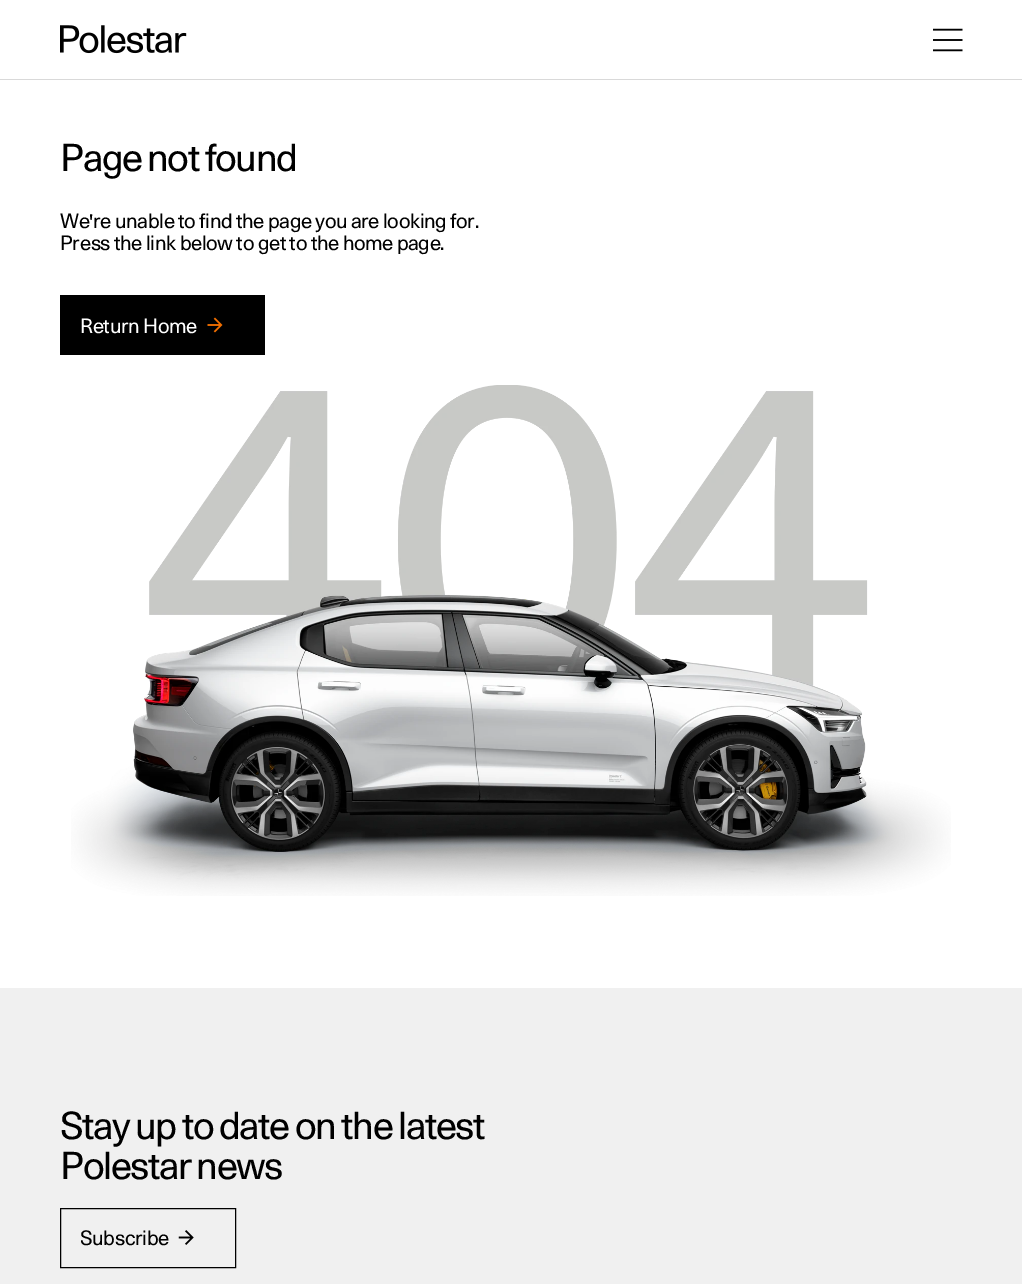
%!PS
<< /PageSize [1022 1284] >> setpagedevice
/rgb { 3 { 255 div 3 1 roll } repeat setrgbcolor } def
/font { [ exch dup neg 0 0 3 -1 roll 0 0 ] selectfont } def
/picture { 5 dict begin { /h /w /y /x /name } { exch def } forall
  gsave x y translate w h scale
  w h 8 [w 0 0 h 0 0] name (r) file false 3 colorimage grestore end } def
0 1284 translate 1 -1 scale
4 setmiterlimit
255 255 255 rgb
0 0 1022 1284 rectfill
(img/1.rgb) 60 25 127 29 picture
(img/2.rgb) 933 28 30 24 picture
217 217 217 rgb
0 79 1022 1 rectfill
0 0 0 rgb
60 295 205 60 rectfill
(img/3.rgb) 207 317 16 16 picture
(img/4.rgb) 71 385 880 511 picture
240 240 240 rgb
0 988 1022 296 rectfill
0 0 0 rgb
60.5 1208.5 175 59 rectstroke
(img/5.rgb) 178 1230 16 15 picture
/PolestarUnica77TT-Regular 37.5 font
60 171 moveto -1.5 0 (Page not found) ashow
/PolestarUnica77TT-Regular 20 font
60 228 moveto -0.38 0 (We're unable to find the page you are looking for.) ashow
60 250 moveto -0.38 0 (Press the link below to get to the home page.) ashow
255 255 255 rgb
80 333 moveto -0.38 0 (Return Home) ashow
/PolestarUnica77TT-Regular 37.5 font
0 0 0 rgb
60 1139 moveto -1.5 0 (Stay up to date on the latest) ashow
60 1179 moveto -1.5 0 (Polestar news) ashow
/PolestarUnica77TT-Regular 20 font
80 1245 moveto -0.38 0 (Subscribe) ashow
showpage
